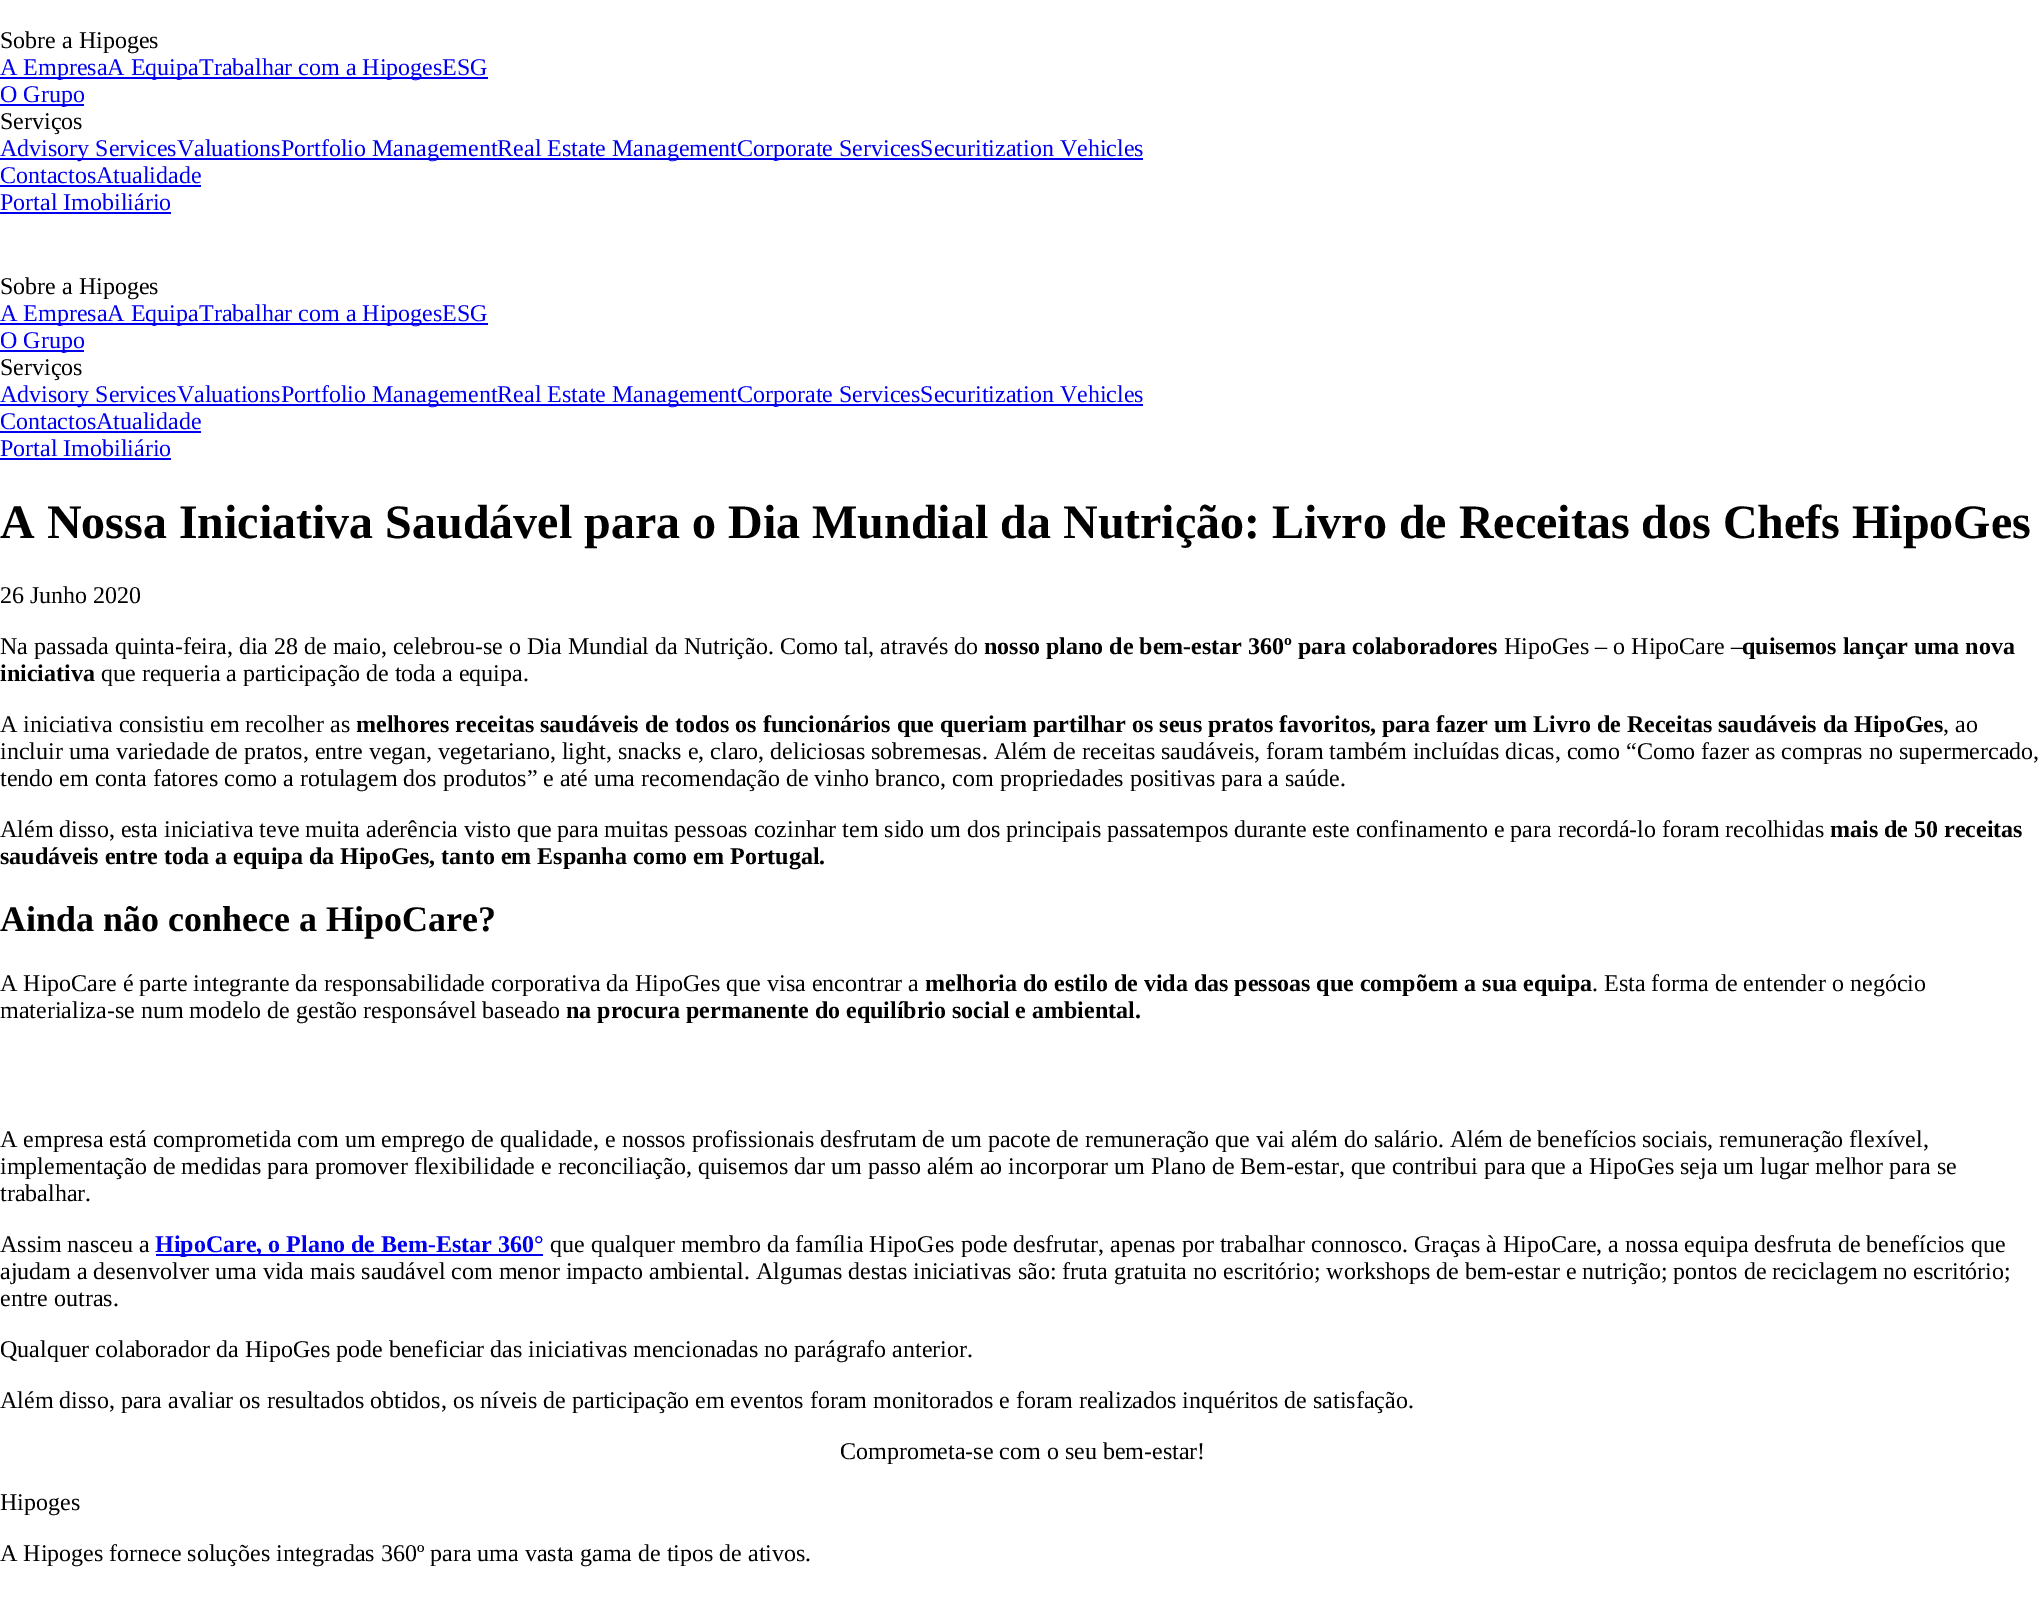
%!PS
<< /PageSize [2044 1608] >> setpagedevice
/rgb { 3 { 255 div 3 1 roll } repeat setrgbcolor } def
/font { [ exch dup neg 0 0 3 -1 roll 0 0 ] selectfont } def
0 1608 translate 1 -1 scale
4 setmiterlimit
255 255 255 rgb
0 0 2044 1608 rectfill
[
  [0 77 198 2 0 0 238]
  [198 77 290 2 0 0 238]
  [0 104 84 2 0 0 238]
  [0 158 737 2 0 0 238]
  [737 158 406 2 0 0 238]
  [0 185 201 2 0 0 238]
  [0 212 171 2 0 0 238]
  [0 323 198 2 0 0 238]
  [198 323 290 2 0 0 238]
  [0 350 84 2 0 0 238]
  [0 404 737 2 0 0 238]
  [737 404 406 2 0 0 238]
  [0 431 201 2 0 0 238]
  [0 458 171 2 0 0 238]
  [156 1254 387 2 0 0 238]
] { aload pop rgb rectfill } forall
/LiberationSerif-Regular 24 font
0 0 0 rgb
0 48 moveto (Sobre a Hipoges) show
0 0 238 rgb
[
  [(A EmpresaA Equipa) 0 75]
  [(Trabalhar com a HipogesESG) 199 75]
  [(O Grupo) 0 102]
] { aload pop moveto show } forall
0 0 0 rgb
0 129 moveto (Serviços) show
0 0 238 rgb
[
  [(Advisory ServicesValuationsPortfolio ManagementReal Estate Management) 0 156]
  [(Corporate ServicesSecuritization Vehicles) 737 156]
  [(ContactosAtualidade) 0 183]
  [(Portal Imobiliário) 0 210]
] { aload pop moveto show } forall
0 0 0 rgb
0 294 moveto (Sobre a Hipoges) show
0 0 238 rgb
[
  [(A EmpresaA Equipa) 0 321]
  [(Trabalhar com a HipogesESG) 199 321]
  [(O Grupo) 0 348]
] { aload pop moveto show } forall
0 0 0 rgb
0 375 moveto (Serviços) show
0 0 238 rgb
[
  [(Advisory ServicesValuationsPortfolio ManagementReal Estate Management) 0 402]
  [(Corporate ServicesSecuritization Vehicles) 737 402]
  [(ContactosAtualidade) 0 429]
  [(Portal Imobiliário) 0 456]
] { aload pop moveto show } forall
/LiberationSerif-Bold 48 font
0 0 0 rgb
0 538 moveto (A Nossa Iniciativa Saudável para o Dia Mundial da Nutrição: Livro de Receitas dos Chefs HipoGes) show
/LiberationSerif-Regular 24 font
0 603 moveto (26 Junho 2020) show
0 654 moveto (Na passada quinta-feira, dia 28 de maio, celebrou-se o Dia Mundial da Nutrição. Como tal, através do) show
/LiberationSerif-Bold 24 font
984 654 moveto (nosso plano de bem-estar 360º para colaboradores) show
/LiberationSerif-Regular 24 font
1504 654 moveto (HipoGes – o HipoCare –) show
/LiberationSerif-Bold 24 font
1742 654 moveto (quisemos lançar uma nova) show
0 681 moveto (iniciativa) show
/LiberationSerif-Regular 24 font
101 681 moveto (que requeria a participação de toda a equipa.) show
0 732 moveto (A iniciativa consistiu em recolher as) show
/LiberationSerif-Bold 24 font
356 732 moveto (melhores receitas saudáveis de todos os funcionários que queriam partilhar os seus pratos favoritos, para fazer um Livro de Receitas saudáveis da HipoGes) show
/LiberationSerif-Regular 24 font
[
  [(, ao) 1943 732]
  [(incluir uma variedade de pratos, entre vegan, vegetariano, light, snacks e, claro, deliciosas sobremesas. Além de receitas saudáveis, foram também incluídas dicas, como “Como fazer as compras no supermercado,) 0 759]
  [(tendo em conta fatores como a rotulagem dos produtos” e até uma recomendação de vinho branco, com propriedades positivas para a saúde.) 0 786]
  [(Além disso, esta iniciativa teve muita aderência visto que para muitas pessoas cozinhar tem sido um dos principais passatempos durante este confinamento e para recordá-lo foram recolhidas) 0 837]
] { aload pop moveto show } forall
/LiberationSerif-Bold 24 font
1830 837 moveto (mais de 50 receitas) show
0 864 moveto (saudáveis entre toda a equipa da HipoGes, tanto em Espanha como em Portugal.) show
/LiberationSerif-Bold 36 font
0 931 moveto (Ainda não conhece a HipoCare?) show
/LiberationSerif-Regular 24 font
0 991 moveto (A HipoCare é parte integrante da responsabilidade corporativa da HipoGes que visa encontrar a) show
/LiberationSerif-Bold 24 font
925 991 moveto (melhoria do estilo de vida das pessoas que compõem a sua equipa) show
/LiberationSerif-Regular 24 font
1592 991 moveto (. Esta forma de entender o negócio) show
0 1018 moveto (materializa-se num modelo de gestão responsável baseado) show
/LiberationSerif-Bold 24 font
566 1018 moveto (na procura permanente do equilíbrio social e ambiental.) show
/LiberationSerif-Regular 24 font
[
  [(A empresa está comprometida com um emprego de qualidade, e nossos profissionais desfrutam de um pacote de remuneração que vai além do salário. Além de benefícios sociais, remuneração flexível,) 0 1147]
  [(implementação de medidas para promover flexibilidade e reconciliação, quisemos dar um passo além ao incorporar um Plano de Bem-estar, que contribui para que a HipoGes seja um lugar melhor para se) 0 1174]
  [(trabalhar.) 0 1201]
  [(Assim nasceu a) 0 1252]
] { aload pop moveto show } forall
/LiberationSerif-Bold 24 font
0 0 238 rgb
155 1252 moveto (HipoCare, o Plano de Bem-Estar 360°) show
/LiberationSerif-Regular 24 font
0 0 0 rgb
[
  [(que qualquer membro da família HipoGes pode desfrutar, apenas por trabalhar connosco. Graças à HipoCare, a nossa equipa desfruta de benefícios que) 550 1252]
  [(ajudam a desenvolver uma vida mais saudável com menor impacto ambiental. Algumas destas iniciativas são: fruta gratuita no escritório; workshops de bem-estar e nutrição; pontos de reciclagem no escritório;) 0 1279]
  [(entre outras.) 0 1306]
  [(Qualquer colaborador da HipoGes pode beneficiar das iniciativas mencionadas no parágrafo anterior.) 0 1357]
  [(Além disso, para avaliar os resultados obtidos, os níveis de participação em eventos foram monitorados e foram realizados inquéritos de satisfação.) 0 1408]
  [(Comprometa-se com o seu bem-estar!) 840 1459]
  [(Hipoges) 0 1510]
  [(A Hipoges fornece soluções integradas 360º para uma vasta gama de tipos de ativos.) 0 1561]
] { aload pop moveto show } forall
showpage
